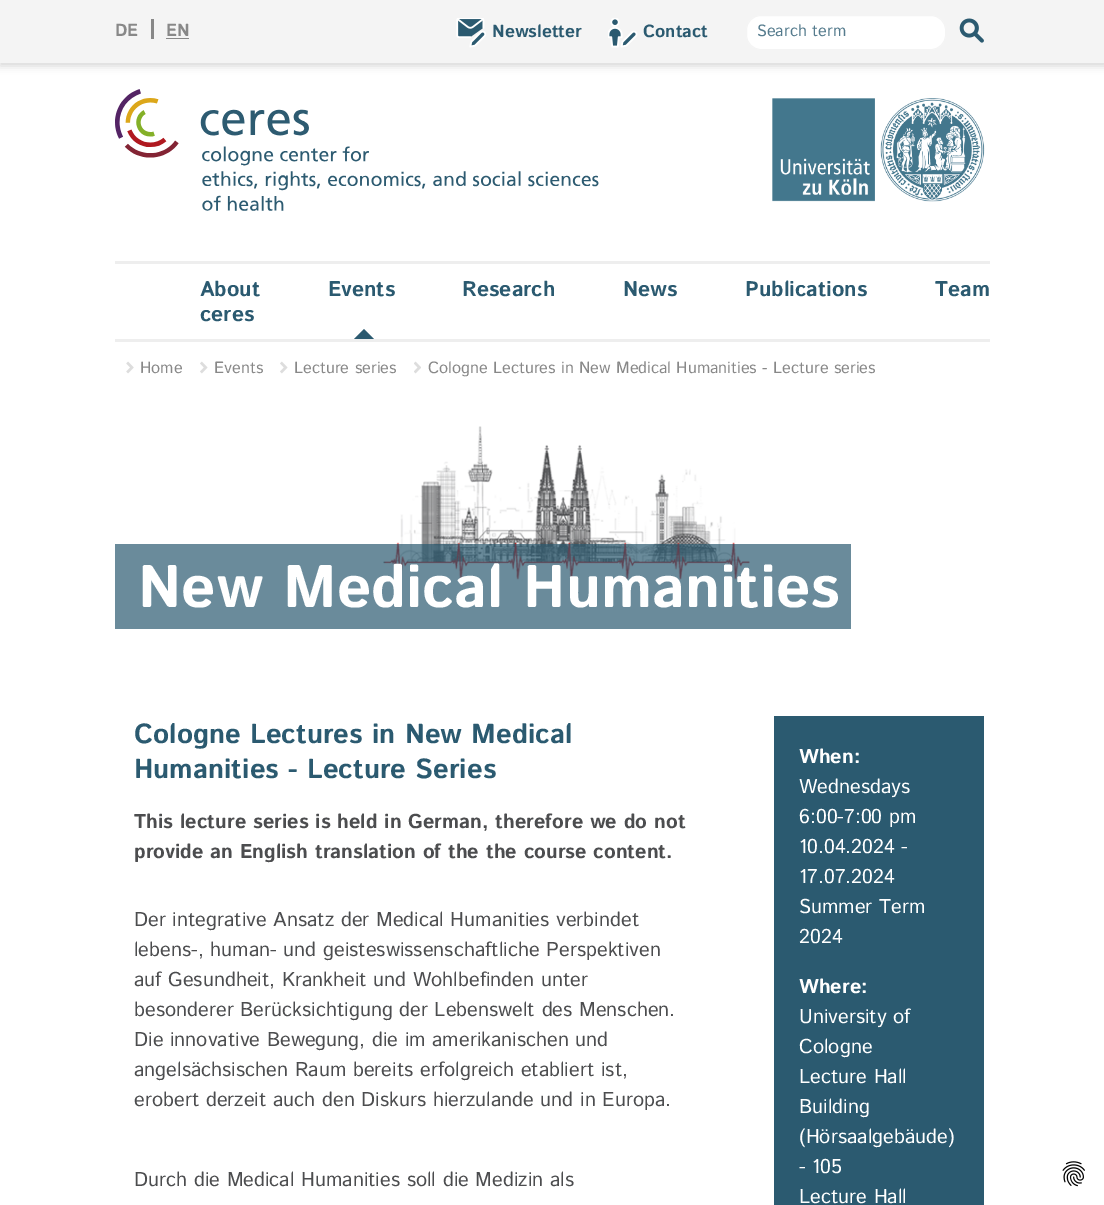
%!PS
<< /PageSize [1104 1205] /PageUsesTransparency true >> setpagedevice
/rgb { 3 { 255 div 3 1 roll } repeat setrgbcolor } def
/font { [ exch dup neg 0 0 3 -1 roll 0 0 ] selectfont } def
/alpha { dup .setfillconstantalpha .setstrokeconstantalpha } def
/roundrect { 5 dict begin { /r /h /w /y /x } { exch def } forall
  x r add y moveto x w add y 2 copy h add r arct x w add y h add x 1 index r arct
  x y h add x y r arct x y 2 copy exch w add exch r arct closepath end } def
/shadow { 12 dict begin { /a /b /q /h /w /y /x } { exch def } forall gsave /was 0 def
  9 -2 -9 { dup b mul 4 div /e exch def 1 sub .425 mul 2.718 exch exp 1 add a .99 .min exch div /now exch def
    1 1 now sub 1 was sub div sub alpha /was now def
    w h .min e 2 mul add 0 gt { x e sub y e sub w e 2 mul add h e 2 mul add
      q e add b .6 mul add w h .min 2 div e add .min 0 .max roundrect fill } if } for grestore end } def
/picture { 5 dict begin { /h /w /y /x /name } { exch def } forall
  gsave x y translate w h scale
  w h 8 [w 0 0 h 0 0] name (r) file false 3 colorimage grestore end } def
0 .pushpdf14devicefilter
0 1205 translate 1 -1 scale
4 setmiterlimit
255 255 255 rgb
0 0 1104 1205 rectfill
0 0 0 rgb
0 4 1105 62 0 4 0.16 shadow
[
  [0 0 1104 63 244 244 244]
  [151 19 3 20 136 136 136]
  [166 38 23 1 136 136 136]
] { aload pop rgb rectfill } forall
(img/1.rgb) 456 18 30 30 picture
(img/2.rgb) 608 18 30 30 picture
255 255 255 rgb
746.5 15.5 199 34 14.5 roundrect gsave fill grestore
244 244 244 rgb
stroke
(img/3.rgb) 959 18 25 25 picture
(img/4.rgb) 115 89 484 122 picture
(img/5.rgb) 772 98 213 104 picture
238 238 238 rgb
115 261 875 3 rectfill
115 339 875 3 rectfill
43 90 112 rgb
374 339 moveto 354 339 lineto 364 329 lineto closepath fill
(img/6.rgb) 126 361 8 13 picture
(img/7.rgb) 200 361 8 13 picture
(img/7.rgb) 280 361 8 13 picture
(img/8.rgb) 414 361 7 13 picture
(img/9.rgb) 383 426 367 157 picture
0.7 alpha
115 544 736 85 rectfill
1 alpha
774 716 210 489 rectfill
(img/10.rgb) 1062 1161 23 26 picture
/IstokWeb-Bold 17.5 font
136 136 136 rgb
115 36 moveto (DE) show
166 36 moveto (EN) show
43 90 112 rgb
492 37 moveto (Newsletter) show
643 37 moveto (Contact) show
/IstokWeb-Regular 16.25 font
85 123 141 rgb
757 36 moveto (Search term) show
/IstokWeb-Bold 21.25 font
43 90 112 rgb
[
  [(About) 200 296]
  [(ceres) 200 321]
  [(Events) 328 296]
  [(Research) 462 296]
  [(News) 623 296]
  [(Publications) 745 296]
  [(Team) 935 296]
] { aload pop moveto show } forall
/IstokWeb-Regular 16.25 font
136 136 136 rgb
[
  [(Home) 140 373]
  [(Events) 214 373]
  [(Lecture series) 294 373]
  [(Cologne Lectures in New Medical Humanities - Lecture series) 428 373]
] { aload pop moveto show } forall
/IstokWeb-Bold 60 font
255 255 255 rgb
138 607 moveto (New Medical Humanities) show
/IstokWeb-Bold 27.5 font
43 90 112 rgb
134 743 moveto (Cologne Lectures in New Medical) show
134 778 moveto (Humanities - Lecture Series) show
/IstokWeb-Bold 20 font
76 77 79 rgb
134 828 moveto (This lecture series is held in German, therefore we do not) show
134 858 moveto (provide an English translation of the the course content.) show
/IstokWeb-Regular 20 font
[
  [(Der integrative Ansatz der Medical Humanities verbindet) 134 926]
  [(lebens-, human- und geisteswissenschaftliche Perspektiven) 134 956]
  [(auf Gesundheit, Krankheit und Wohlbefinden unter) 134 986]
  [(besonderer Berücksichtigung der Lebenswelt des Menschen.) 134 1016]
  [(Die innovative Bewegung, die im amerikanischen und) 134 1046]
  [(angelsächsischen Raum bereits erfolgreich etabliert ist,) 134 1076]
  [(erobert derzeit auch den Diskurs hierzulande und in Europa.) 134 1106]
  [(Durch die Medical Humanities soll die Medizin als) 134 1186]
] { aload pop moveto show } forall
/IstokWeb-Bold 20 font
255 255 255 rgb
799 763 moveto (When:) show
/IstokWeb-Regular 20 font
[
  [(Wednesdays) 799 793]
  [(6:00-7:00 pm) 799 823]
  [(10.04.2024 -) 799 853]
  [(17.07.2024) 799 883]
  [(Summer Term) 799 913]
  [(2024) 799 943]
] { aload pop moveto show } forall
/IstokWeb-Bold 20 font
799 993 moveto (Where:) show
/IstokWeb-Regular 20 font
[
  [(University of) 799 1023]
  [(Cologne) 799 1053]
  [(Lecture Hall) 799 1083]
  [(Building) 799 1113]
  [(\(Hörsaalgebäude\)) 799 1143]
  [(- 105) 799 1173]
  [(Lecture Hall) 799 1203]
] { aload pop moveto show } forall
.poppdf14devicefilter showpage
